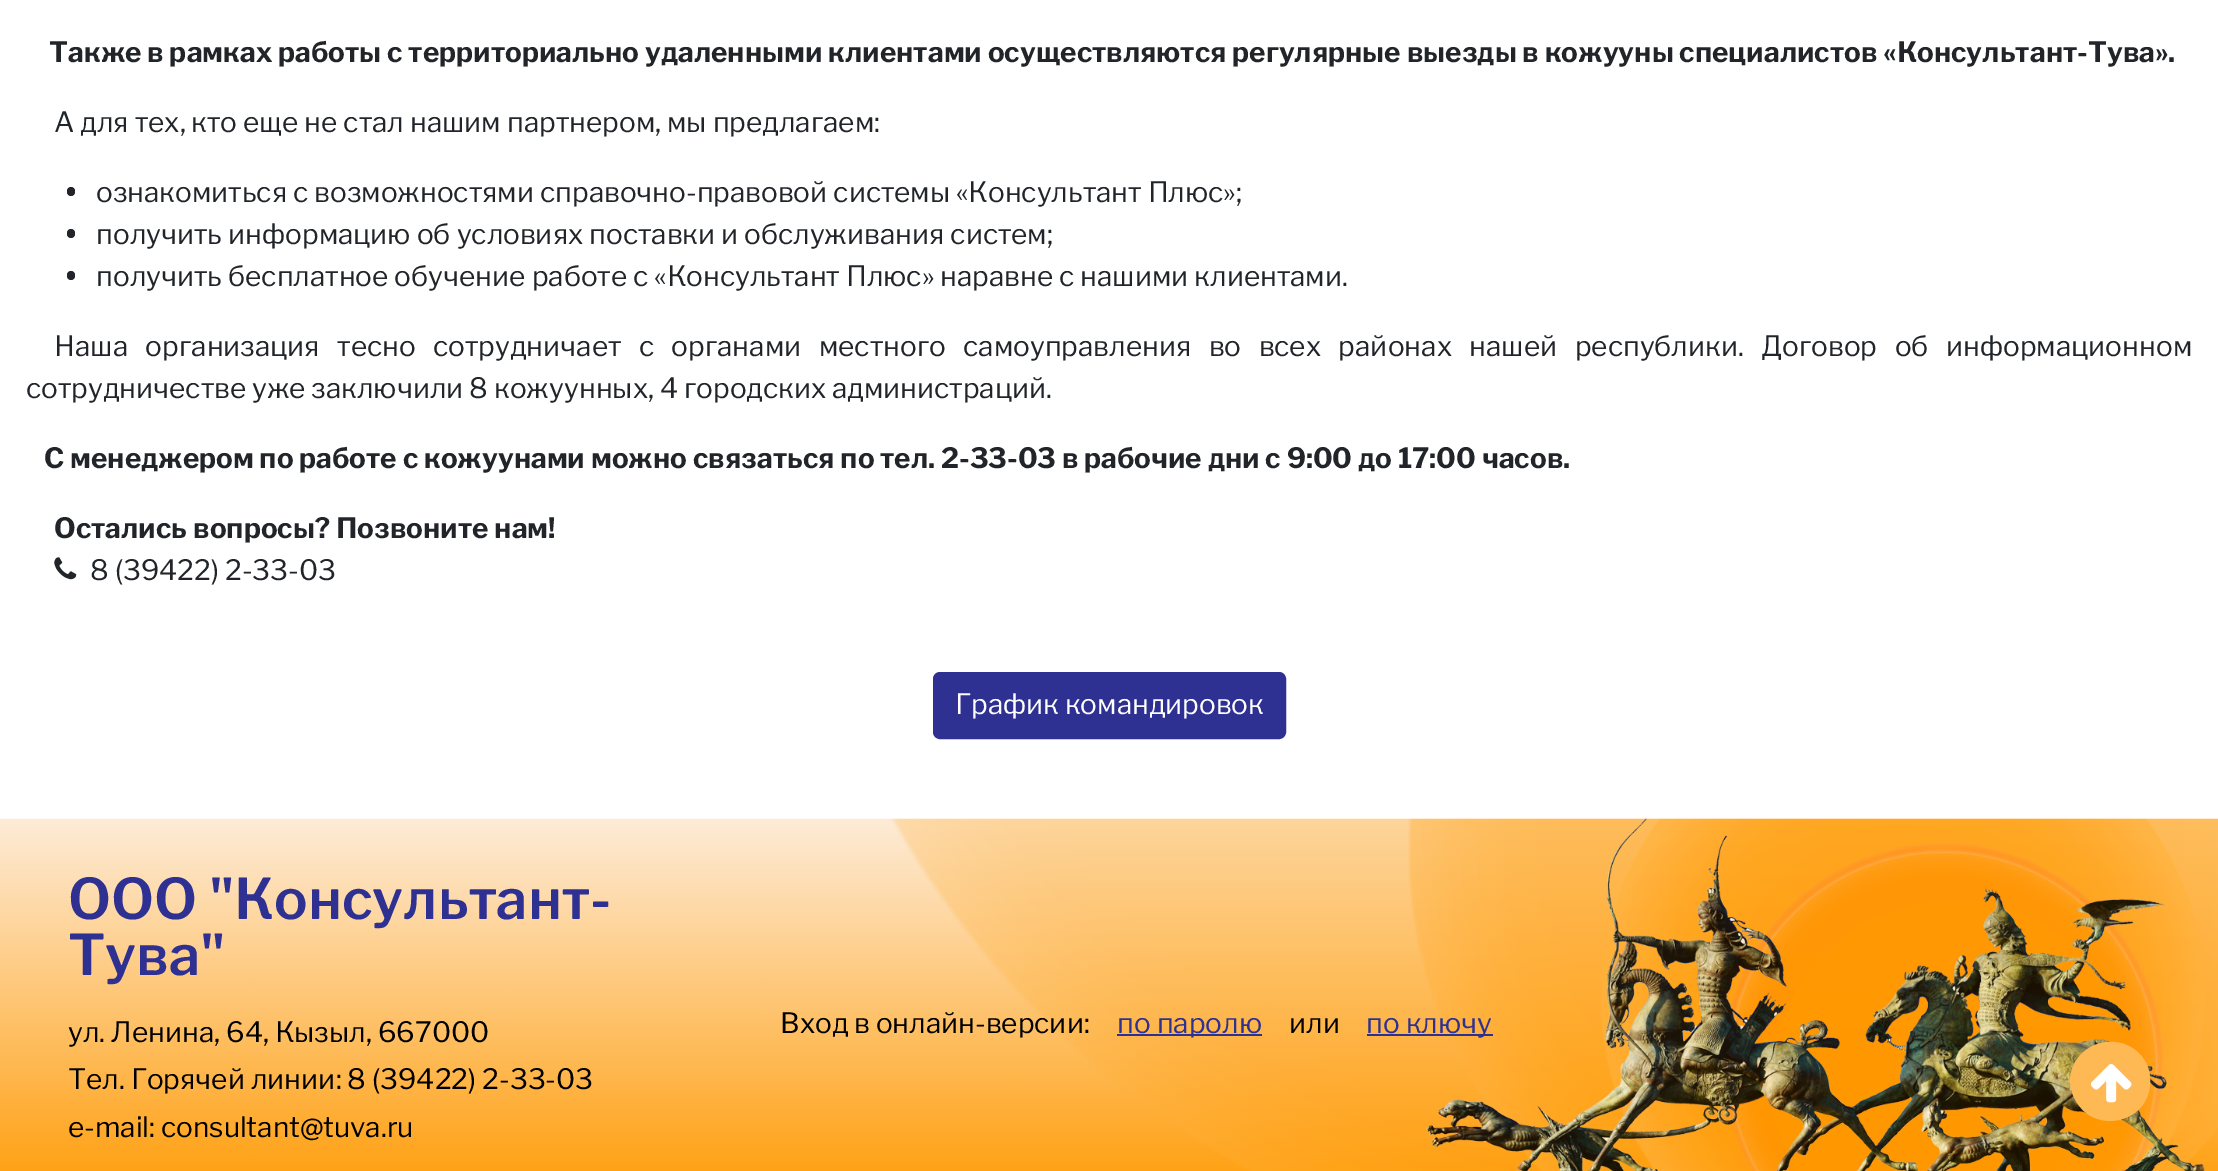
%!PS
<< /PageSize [2218 1171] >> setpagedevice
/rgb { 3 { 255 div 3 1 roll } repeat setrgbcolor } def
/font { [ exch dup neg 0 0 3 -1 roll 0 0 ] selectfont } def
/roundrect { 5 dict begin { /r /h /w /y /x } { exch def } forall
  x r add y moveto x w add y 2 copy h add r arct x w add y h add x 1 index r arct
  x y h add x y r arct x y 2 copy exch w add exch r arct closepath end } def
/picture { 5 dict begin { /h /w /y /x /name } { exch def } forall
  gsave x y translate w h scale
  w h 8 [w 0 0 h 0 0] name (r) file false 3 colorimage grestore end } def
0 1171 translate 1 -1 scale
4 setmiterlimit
255 255 255 rgb
0 0 2218 1171 rectfill
33 37 41 rgb
67 187 8 9 4 roundrect fill
67 229 8 9 4 roundrect fill
67 271 8 9 4 roundrect fill
(img/1.rgb) 54 557 23 23 picture
46 48 146 rgb
934 673 351 65 6 roundrect gsave fill grestore
2 setlinewidth
stroke
(img/2.rgb) 0 818 2218 353 picture
1117 1034 145 2 rectfill
1367 1034 126 2 rectfill
254 185 84 rgb
2145 1061 moveto 2149 1068 2151 1076 2150 1084 curveto 2148 1123 2095 1135 2076 1101 curveto 2072 1095 2070 1087 2070 1079 curveto 2073 1040 2125 1028 2145 1061 curveto closepath fill
(img/3.rgb) 2090 1064 42 39 picture
/LibreFranklin-Bold 28 font
33 37 41 rgb
49 62 moveto (Также в рамках работы с территориально удаленными клиентами осуществляются регулярные выезды в кожууны специалистов «Консультант-Тува».) show
/LibreFranklin-Regular 28 font
[
  [(А для тех, кто еще не стал нашим партнером, мы предлагаем:) 54 132]
  [(ознакомиться с возможностями справочно-правовой системы «Консультант Плюс»;) 96 202]
  [(получить информацию об условиях поставки и обслуживания систем;) 96 244]
  [(получить бесплатное обучение работе с «Консультант Плюс» наравне с нашими клиентами.) 96 286]
] { aload pop moveto show } forall
54 356 moveto 11.5 0 32 (Наша организация тесно сотрудничает с органами местного самоуправления во всех районах нашей республики. Договор об информационном) widthshow
26 398 moveto (сотрудничестве уже заключили 8 кожуунных, 4 городских администраций.) show
/LibreFranklin-Bold 28 font
44 468 moveto (С менеджером по работе с кожуунами можно связаться по тел. 2-33-03 в рабочие дни с 9:00 до 17:00 часов.) show
54 538 moveto (Остались вопросы? Позвоните нам!) show
/LibreFranklin-Regular 28 font
90 580 moveto (8 \(39422\) 2-33-03) show
255 255 255 rgb
955 714 moveto (График командировок) show
/LibreFranklin-SemiBold 56 font
46 48 146 rgb
68 919 moveto (ООО "Консультант-) show
68 975 moveto (Тува") show
/LibreFranklin-Regular 28 font
0 0 0 rgb
[
  [(ул. Ленина, 64, Кызыл, 667000) 68 1042]
  [(Тел. Горячей линии: 8 \(39422\) 2-33-03) 68 1089]
  [(e-mail: consultant@tuva.ru) 68 1137]
  [(Вход в онлайн-версии:) 780 1033]
] { aload pop moveto show } forall
46 48 146 rgb
1117 1033 moveto (по паролю) show
0 0 0 rgb
1289 1033 moveto (или) show
46 48 146 rgb
1366 1033 moveto (по ключу) show
showpage
